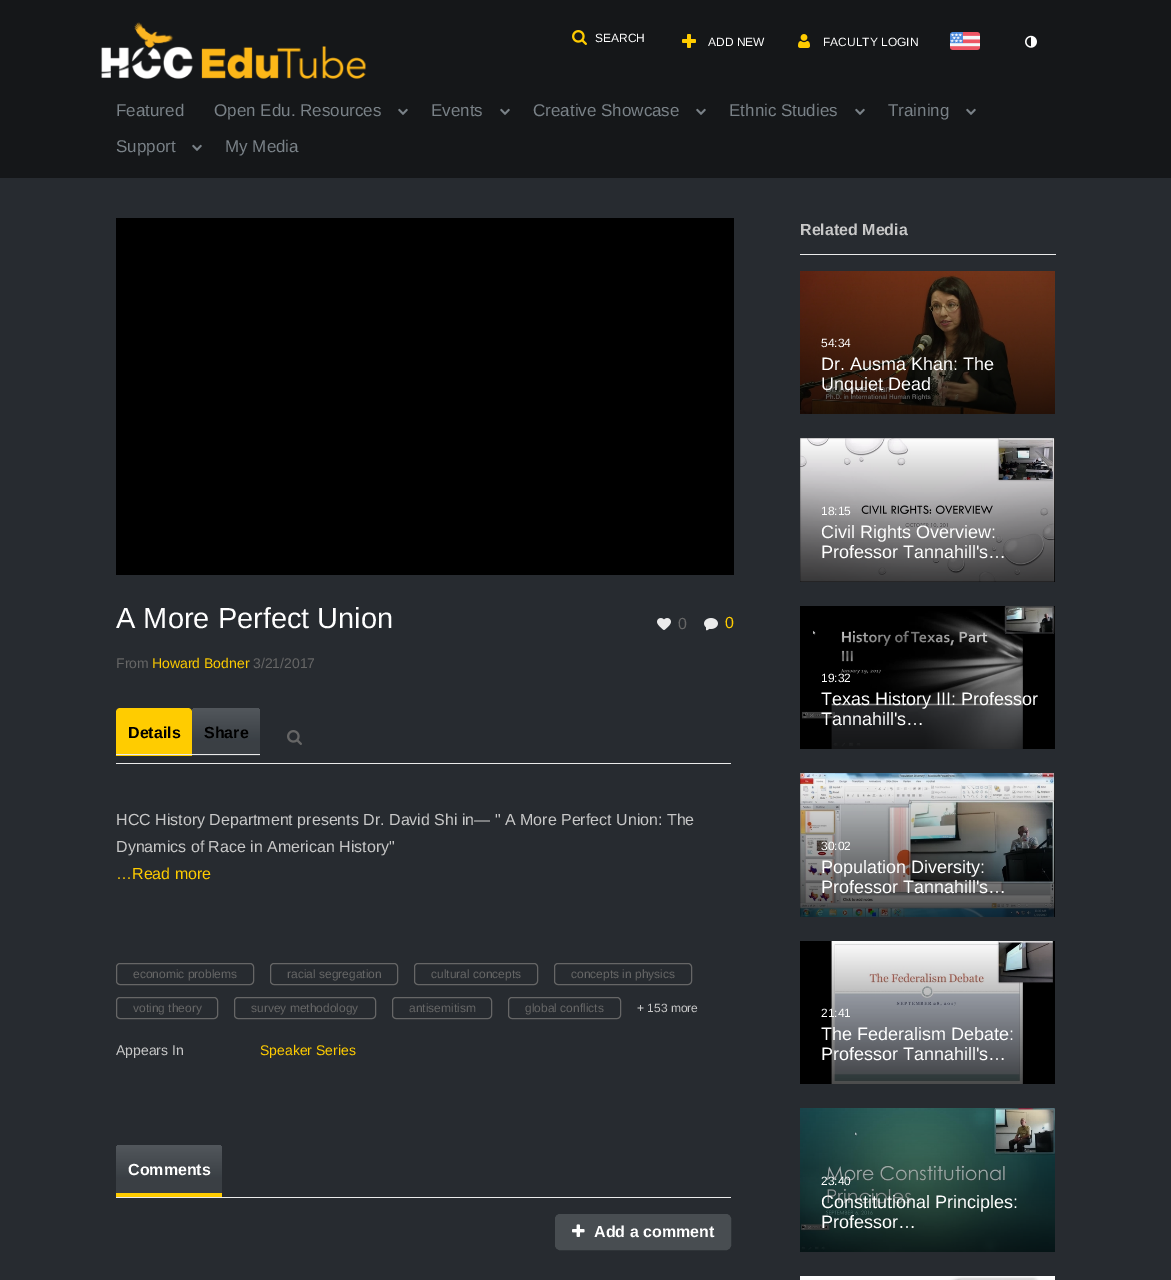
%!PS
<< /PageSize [1171 1280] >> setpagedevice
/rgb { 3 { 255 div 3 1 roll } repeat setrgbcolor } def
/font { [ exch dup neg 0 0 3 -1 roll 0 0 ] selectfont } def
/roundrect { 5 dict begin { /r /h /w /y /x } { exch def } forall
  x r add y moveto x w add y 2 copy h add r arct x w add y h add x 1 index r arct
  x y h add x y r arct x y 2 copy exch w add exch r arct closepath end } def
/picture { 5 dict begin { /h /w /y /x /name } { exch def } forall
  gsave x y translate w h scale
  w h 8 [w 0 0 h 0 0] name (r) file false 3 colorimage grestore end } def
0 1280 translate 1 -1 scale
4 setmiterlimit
39 43 48 rgb
0 0 1171 1280 rectfill
21 23 25 rgb
0 0 1171 178 rectfill
(img/1.rgb) 101 22 265 57 picture
(img/2.rgb) 572 30 15 15 picture
(img/3.rgb) 682 34 14 14 picture
(img/4.rgb) 798 34 12 14 picture
(img/5.rgb) 950 32 30 18 picture
(img/6.rgb) 1025 35 12 13 picture
(img/7.rgb) 398 108 10 7 picture
(img/7.rgb) 500 108 10 7 picture
(img/7.rgb) 696 108 10 7 picture
(img/7.rgb) 855 108 10 7 picture
(img/7.rgb) 966 108 10 7 picture
(img/7.rgb) 192 144 10 7 picture
0 0 0 rgb
116 218 618 357 rectfill
(img/8.rgb) 657 618 14 12 picture
(img/9.rgb) 704 618 14 13 picture
235 235 235 rgb
800 254 256 1 rectfill
(img/10.rgb) 800 271 255 143 picture
(img/11.rgb) 800 438 255 144 picture
(img/12.rgb) 800 606 255 143 picture
(img/13.rgb) 800 773 255 144 picture
(img/14.rgb) 800 941 255 143 picture
(img/15.rgb) 800 1108 255 144 picture
(img/16.rgb) 800 1276 255 4 picture
116 763 615 1 rectfill
255 204 0 rgb
120 708 moveto 188 708 lineto 190 708 192 710 192 712 curveto 192 756 lineto 116 756 lineto 116 712 lineto 116 710 118 708 120 708 curveto closepath fill
gsave 196 708 moveto 256 708 lineto 258 708 260 710 260 712 curveto 260 756 lineto 192 756 lineto 192 712 lineto 192 710 194 708 196 708 curveto closepath clip newpath
<< /ShadingType 2 /ColorSpace /DeviceRGB /Coords [226 708 226 756] /Extend [true true] /Function << /FunctionType 3 /Domain [0 1] /Functions [<< /FunctionType 2 /Domain [0 1] /C0 [0.322 0.341 0.361] /C1 [0.227 0.247 0.267] /N 1 >> << /FunctionType 2 /Domain [0 1] /C0 [0.227 0.247 0.267] /C1 [0.227 0.247 0.267] /N 1 >>] /Bounds [0.7] /Encode [0 1 0 1] >> >> shfill grestore
235 235 235 rgb
116 754 144 1 rectfill
(img/17.rgb) 287 730 15 15 picture
102 102 102 rgb
116.5 963.5 137 21 3.5 roundrect stroke
270.5 963.5 127 21 3.5 roundrect stroke
414.5 963.5 123 21 3.5 roundrect stroke
554.5 963.5 137 21 3.5 roundrect stroke
116.5 997.5 101 21 3.5 roundrect stroke
234.5 997.5 141 21 3.5 roundrect stroke
392.5 997.5 99 21 3.5 roundrect stroke
508.5 997.5 112 21 3.5 roundrect stroke
235 235 235 rgb
116 1197 615 1 rectfill
gsave 120 1145 moveto 218 1145 lineto 220 1145 222 1147 222 1149 curveto 222 1193 lineto 116 1193 lineto 116 1149 lineto 116 1147 118 1145 120 1145 curveto closepath clip newpath
<< /ShadingType 2 /ColorSpace /DeviceRGB /Coords [169 1145 169 1193] /Extend [true true] /Function << /FunctionType 3 /Domain [0 1] /Functions [<< /FunctionType 2 /Domain [0 1] /C0 [0.322 0.341 0.361] /C1 [0.227 0.247 0.267] /N 1 >> << /FunctionType 2 /Domain [0 1] /C0 [0.227 0.247 0.267] /C1 [0.227 0.247 0.267] /N 1 >>] /Bounds [0.7] /Encode [0 1 0 1] >> >> shfill grestore
255 204 0 rgb
116 1193 106 4 rectfill
72 77 81 rgb
555.5 1214.5 175 35 4.5 roundrect gsave fill grestore
stroke
(img/18.rgb) 572 1224 13 13 picture
/LiberationSans-Regular 12 font
255 255 255 rgb
[
  [(SEARCH) 595 42]
  [(ADD NEW) 708 46]
  [(FACULTY LOGIN) 823 46]
] { aload pop moveto show } forall
/LiberationSans-Regular 17 font
122 130 136 rgb
[
  [(Featured) 116 116]
  [(Open Edu. Resources) 214 116]
  [(Events) 431 116]
  [(Creative Showcase) 533 116]
  [(Ethnic Studies) 729 116]
  [(Training) 888 116]
  [(Support) 116 152]
  [(My Media) 225 152]
] { aload pop moveto show } forall
/LiberationSans-Regular 29 font
255 255 255 rgb
116 628 moveto (A More Perfect Union) show
/LiberationSans-Regular 14 font
102 102 102 rgb
116 668 moveto (From) show
255 204 0 rgb
152 668 moveto (Howard Bodner) show
102 102 102 rgb
253 668 moveto (3/21/2017) show
/LiberationSans-Regular 16 font
678 629 moveto (0) show
255 204 0 rgb
725 628 moveto (0) show
/LiberationSans-Bold 16 font
200 200 200 rgb
800 235 moveto (Related Media) show
/LiberationSans-Regular 12 font
255 255 255 rgb
821 347 moveto (54:34) show
/LiberationSans-Regular 18 font
821 370 moveto (Dr. Ausma Khan: The) show
821 390 moveto (Unquiet Dead) show
/LiberationSans-Regular 12 font
821 515 moveto (18:15) show
/LiberationSans-Regular 18 font
821 538 moveto (Civil Rights Overview:) show
821 558 moveto (Professor Tannahill's…) show
/LiberationSans-Regular 12 font
821 682 moveto (19:32) show
/LiberationSans-Regular 18 font
821 705 moveto (Texas History III: Professor) show
821 725 moveto (Tannahill's…) show
/LiberationSans-Regular 12 font
821 850 moveto (30:02) show
/LiberationSans-Regular 18 font
821 873 moveto (Population Diversity:) show
821 893 moveto (Professor Tannahill's…) show
/LiberationSans-Regular 12 font
821 1017 moveto (21:41) show
/LiberationSans-Regular 18 font
821 1040 moveto (The Federalism Debate:) show
821 1060 moveto (Professor Tannahill's…) show
/LiberationSans-Regular 12 font
821 1185 moveto (23:40) show
/LiberationSans-Regular 18 font
821 1208 moveto (Constitutional Principles:) show
821 1228 moveto (Professor…) show
/LiberationSans-Bold 16 font
0 0 0 rgb
128 738 moveto (Details) show
204 738 moveto (Share) show
/LiberationSans-Regular 16 font
200 200 200 rgb
116 825 moveto (HCC History Department presents Dr. David Shi in— " A More Perfect Union: The) show
116 852 moveto (Dynamics of Race in American History") show
255 204 0 rgb
116 879 moveto (…Read more) show
/LiberationSans-Regular 12 font
102 102 102 rgb
[
  [(economic problems) 133 978]
  [(racial segregation) 287 978]
  [(cultural concepts) 431 978]
  [(concepts in physics) 571 978]
  [(voting theory) 133 1012]
  [(survey methodology) 251 1012]
  [(antisemitism) 409 1012]
  [(global conflicts) 525 1012]
] { aload pop moveto show } forall
200 200 200 rgb
637 1012 moveto (+ 153 more) show
/LiberationSans-Regular 14 font
116 1055 moveto (Appears In) show
255 204 0 rgb
260 1055 moveto (Speaker Series) show
/LiberationSans-Bold 16 font
255 255 255 rgb
128 1175 moveto (Comments) show
594 1237 moveto (Add a comment) show
showpage
